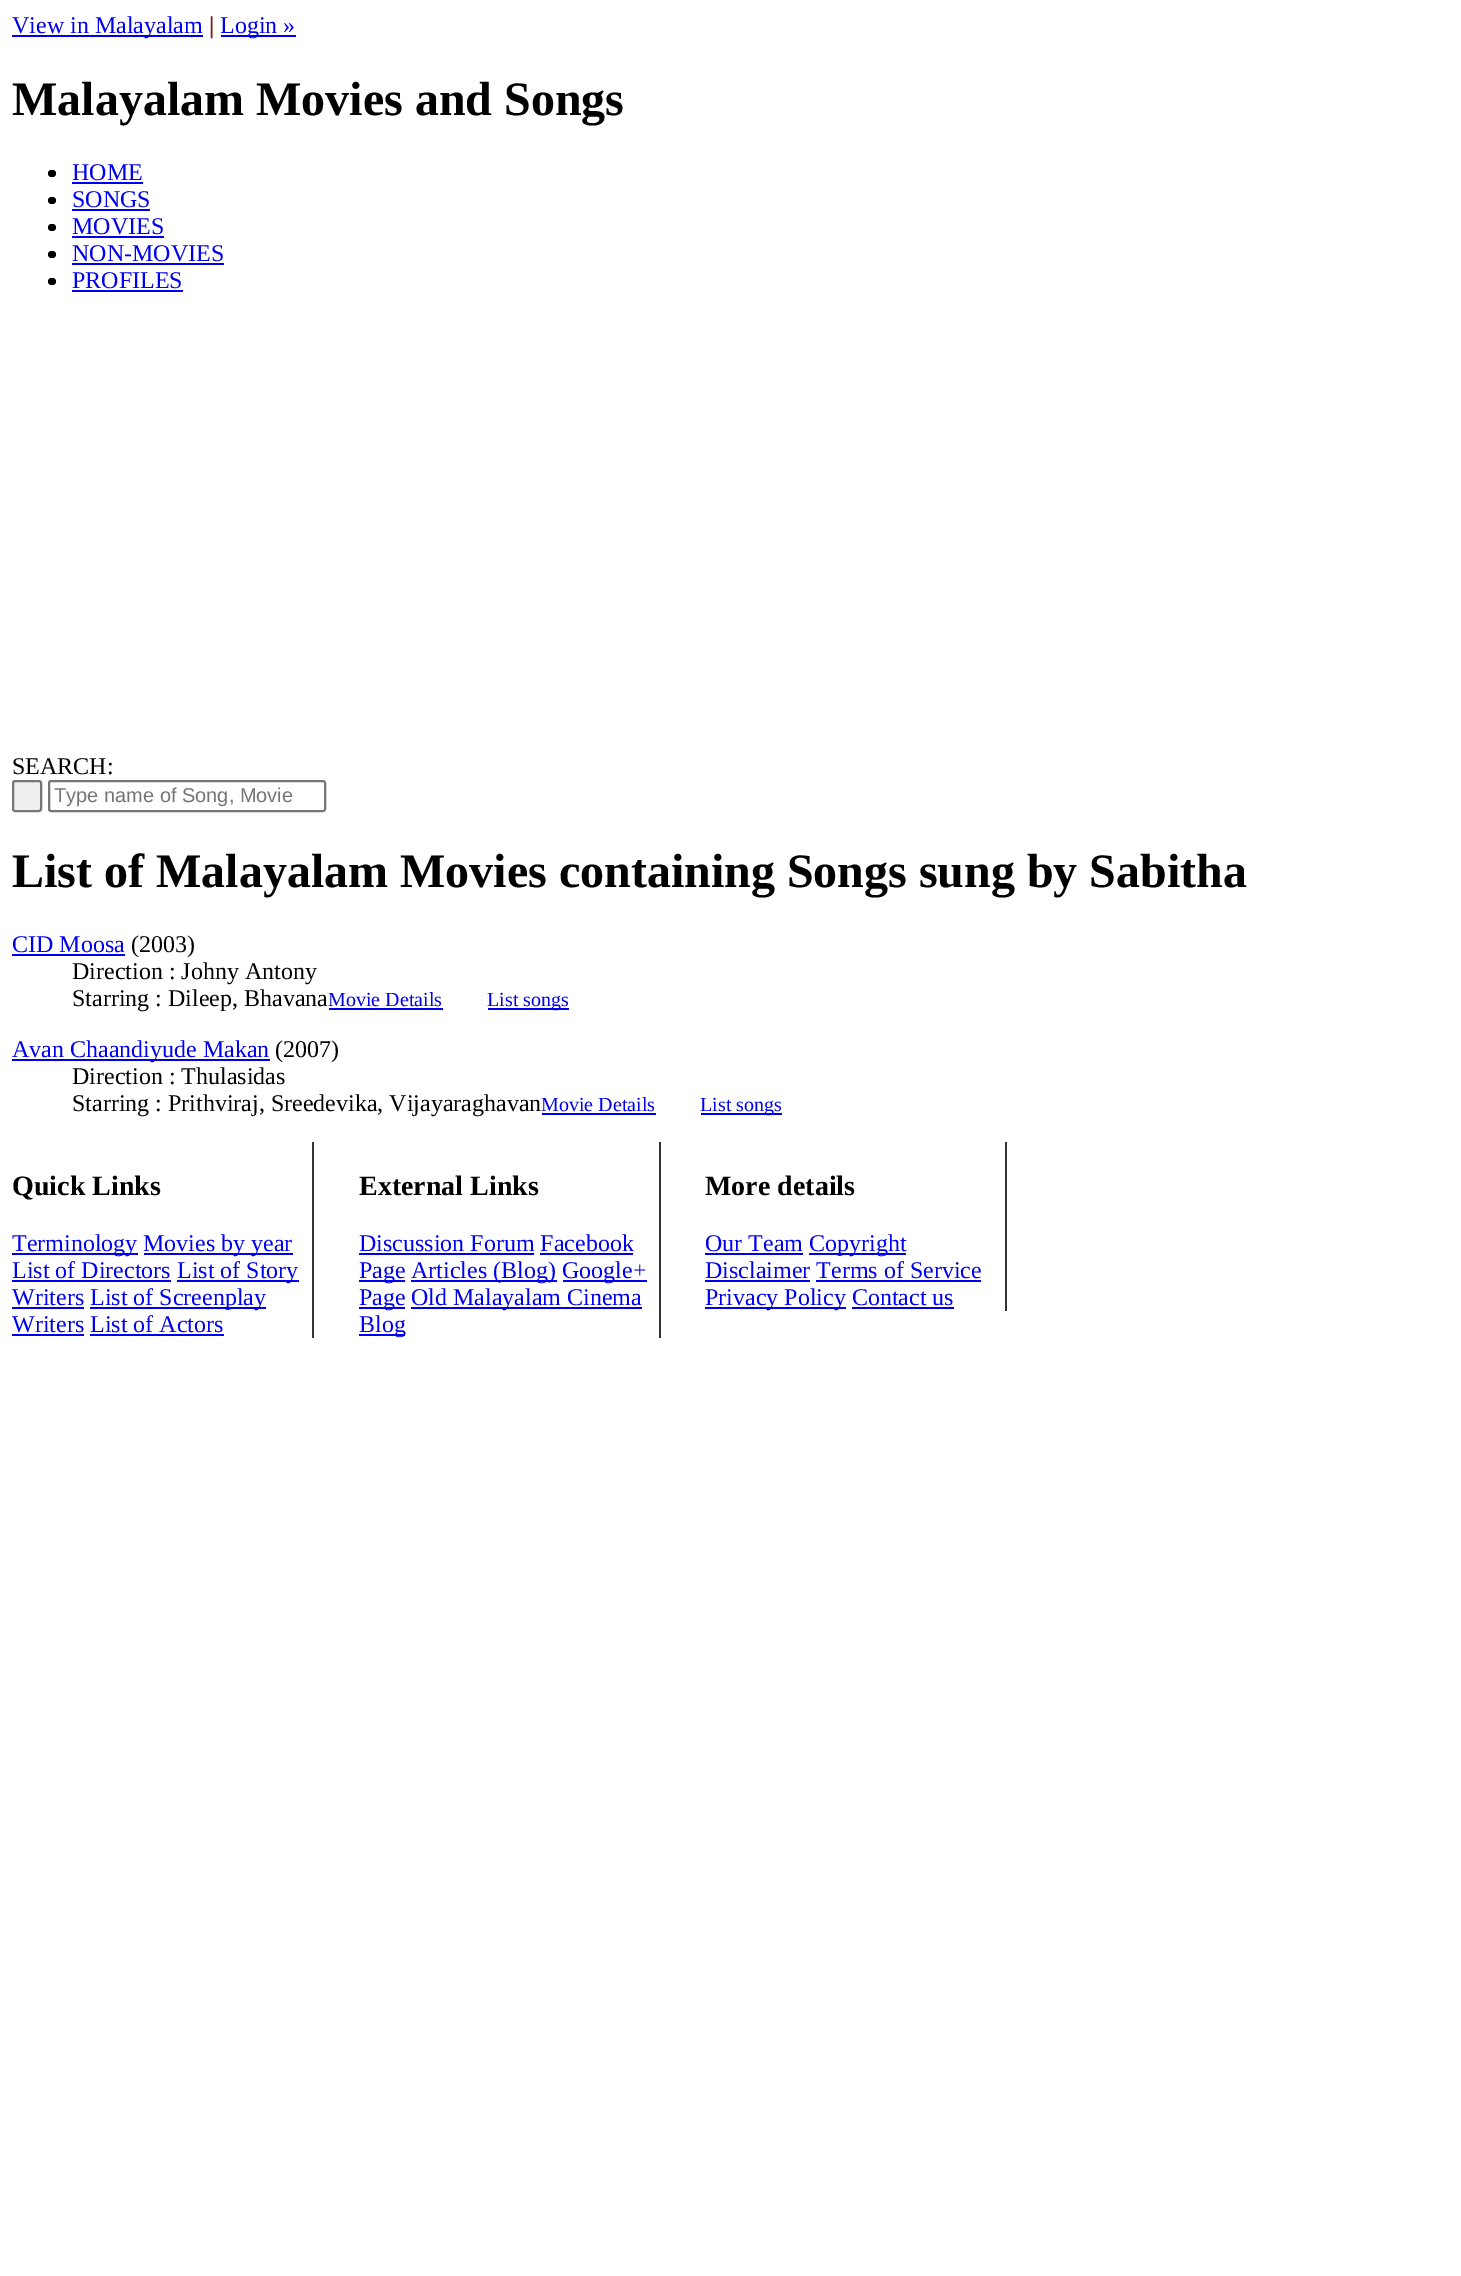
%!PS
<< /PageSize [1461 2276] >> setpagedevice
/rgb { 3 { 255 div 3 1 roll } repeat setrgbcolor } def
/font { [ exch dup neg 0 0 3 -1 roll 0 0 ] selectfont } def
/roundrect { 5 dict begin { /r /h /w /y /x } { exch def } forall
  x r add y moveto x w add y 2 copy h add r arct x w add y h add x 1 index r arct
  x y h add x y r arct x y 2 copy exch w add exch r arct closepath end } def
0 2276 translate 1 -1 scale
4 setmiterlimit
255 255 255 rgb
0 0 1461 2276 rectfill
0 0 238 rgb
12 35 191 2 rectfill
221 35 75 2 rectfill
0 0 0 rgb
48 170 8 7 3.5 roundrect fill
0 0 238 rgb
72 182 71 2 rectfill
0 0 0 rgb
48 197 8 7 3.5 roundrect fill
0 0 238 rgb
72 209 78 2 rectfill
0 0 0 rgb
48 224 8 7 3.5 roundrect fill
0 0 238 rgb
72 236 92 2 rectfill
0 0 0 rgb
48 251 8 7 3.5 roundrect fill
0 0 238 rgb
72 263 152 2 rectfill
0 0 0 rgb
48 278 8 7 3.5 roundrect fill
0 0 238 rgb
72 290 111 2 rectfill
239 239 239 rgb
13 781 28 30 2 roundrect gsave fill grestore
118 118 118 rgb
2 setlinewidth
stroke
49 781 276 30 2 roundrect stroke
[
  [12 954 113 2 0 0 238]
  [329 1008 114 2 0 0 238]
  [488 1008 81 2 0 0 238]
  [12 1059 258 2 0 0 238]
  [542 1113 114 2 0 0 238]
  [701 1113 81 2 0 0 238]
  [312 1142 2 196 51 51 51]
  [12 1253 126 2 0 0 238]
  [144 1253 149 2 0 0 238]
  [12 1280 159 2 0 0 238]
  [177 1280 122 2 0 0 238]
  [12 1307 72 2 0 0 238]
  [90 1307 176 2 0 0 238]
  [12 1334 72 2 0 0 238]
  [90 1334 134 2 0 0 238]
  [659 1142 2 196 51 51 51]
  [359 1253 175 2 0 0 238]
  [540 1253 93 2 0 0 238]
  [359 1280 46 2 0 0 238]
  [411 1280 146 2 0 0 238]
  [563 1280 84 2 0 0 238]
  [359 1307 46 2 0 0 238]
  [411 1307 231 2 0 0 238]
  [359 1334 46 2 0 0 238]
  [1005 1142 2 169 51 51 51]
  [705 1253 98 2 0 0 238]
  [809 1253 97 2 0 0 238]
  [705 1280 105 2 0 0 238]
  [816 1280 165 2 0 0 238]
  [705 1307 141 2 0 0 238]
  [852 1307 102 2 0 0 238]
] { aload pop rgb rectfill } forall
/LiberationSerif-Regular 24 font
12 33 moveto (View in Malayalam) show
/LiberationSerif-Bold 24 font
118 35 17 rgb
209 33 moveto (|) show
/LiberationSerif-Regular 24 font
0 0 238 rgb
220 33 moveto (Login ») show
/LiberationSerif-Bold 48 font
0 0 0 rgb
12 115 moveto (Malayalam Movies and Songs) show
/LiberationSerif-Regular 24 font
0 0 238 rgb
[
  [(HOME) 72 180]
  [(SONGS) 72 207]
  [(MOVIES) 72 234]
  [(NON-MOVIES) 72 261]
  [(PROFILES) 72 288]
] { aload pop moveto show } forall
0 0 0 rgb
12 774 moveto (SEARCH:) show
/LiberationSans-Regular 20 font
117 117 117 rgb
54 802 moveto (Type name of Song, Movie) show
/LiberationSerif-Bold 48 font
0 0 0 rgb
12 887 moveto (List of Malayalam Movies containing Songs sung by Sabitha) show
/LiberationSerif-Regular 24 font
0 0 238 rgb
12 952 moveto (CID Moosa) show
0 0 0 rgb
[
  [(\(2003\)) 131 952]
  [(Direction : Johny Antony) 72 979]
  [(Starring : Dileep, Bhavana) 72 1006]
] { aload pop moveto show } forall
/LiberationSerif-Regular 20 font
0 0 238 rgb
328 1006 moveto (Movie Details) show
487 1006 moveto (List songs) show
/LiberationSerif-Regular 24 font
12 1057 moveto (Avan Chaandiyude Makan) show
0 0 0 rgb
[
  [(\(2007\)) 275 1057]
  [(Direction : Thulasidas) 72 1084]
  [(Starring : Prithviraj, Sreedevika, Vijayaraghavan) 72 1111]
] { aload pop moveto show } forall
/LiberationSerif-Regular 20 font
0 0 238 rgb
541 1111 moveto (Movie Details) show
700 1111 moveto (List songs) show
/LiberationSerif-Bold 28 font
0 0 0 rgb
12 1195 moveto (Quick Links) show
/LiberationSerif-Regular 24 font
0 0 238 rgb
[
  [(Terminology) 12 1251]
  [(Movies by year) 143 1251]
  [(List of Directors) 12 1278]
  [(List of Story) 177 1278]
  [(Writers) 12 1305]
  [(List of Screenplay) 90 1305]
  [(Writers List of Actors) 12 1332]
] { aload pop moveto show } forall
/LiberationSerif-Bold 28 font
0 0 0 rgb
359 1195 moveto (External Links) show
/LiberationSerif-Regular 24 font
0 0 238 rgb
[
  [(Discussion Forum Facebook) 359 1251]
  [(Page) 359 1278]
  [(Articles \(Blog\)) 411 1278]
  [(Google+) 562 1278]
  [(Page) 359 1305]
  [(Old Malayalam Cinema) 411 1305]
  [(Blog) 359 1332]
] { aload pop moveto show } forall
/LiberationSerif-Bold 28 font
0 0 0 rgb
705 1195 moveto (More details) show
/LiberationSerif-Regular 24 font
0 0 238 rgb
[
  [(Our Team) 705 1251]
  [(Copyright) 809 1251]
  [(Disclaimer Terms of Service) 705 1278]
  [(Privacy Policy Contact us) 705 1305]
] { aload pop moveto show } forall
showpage
